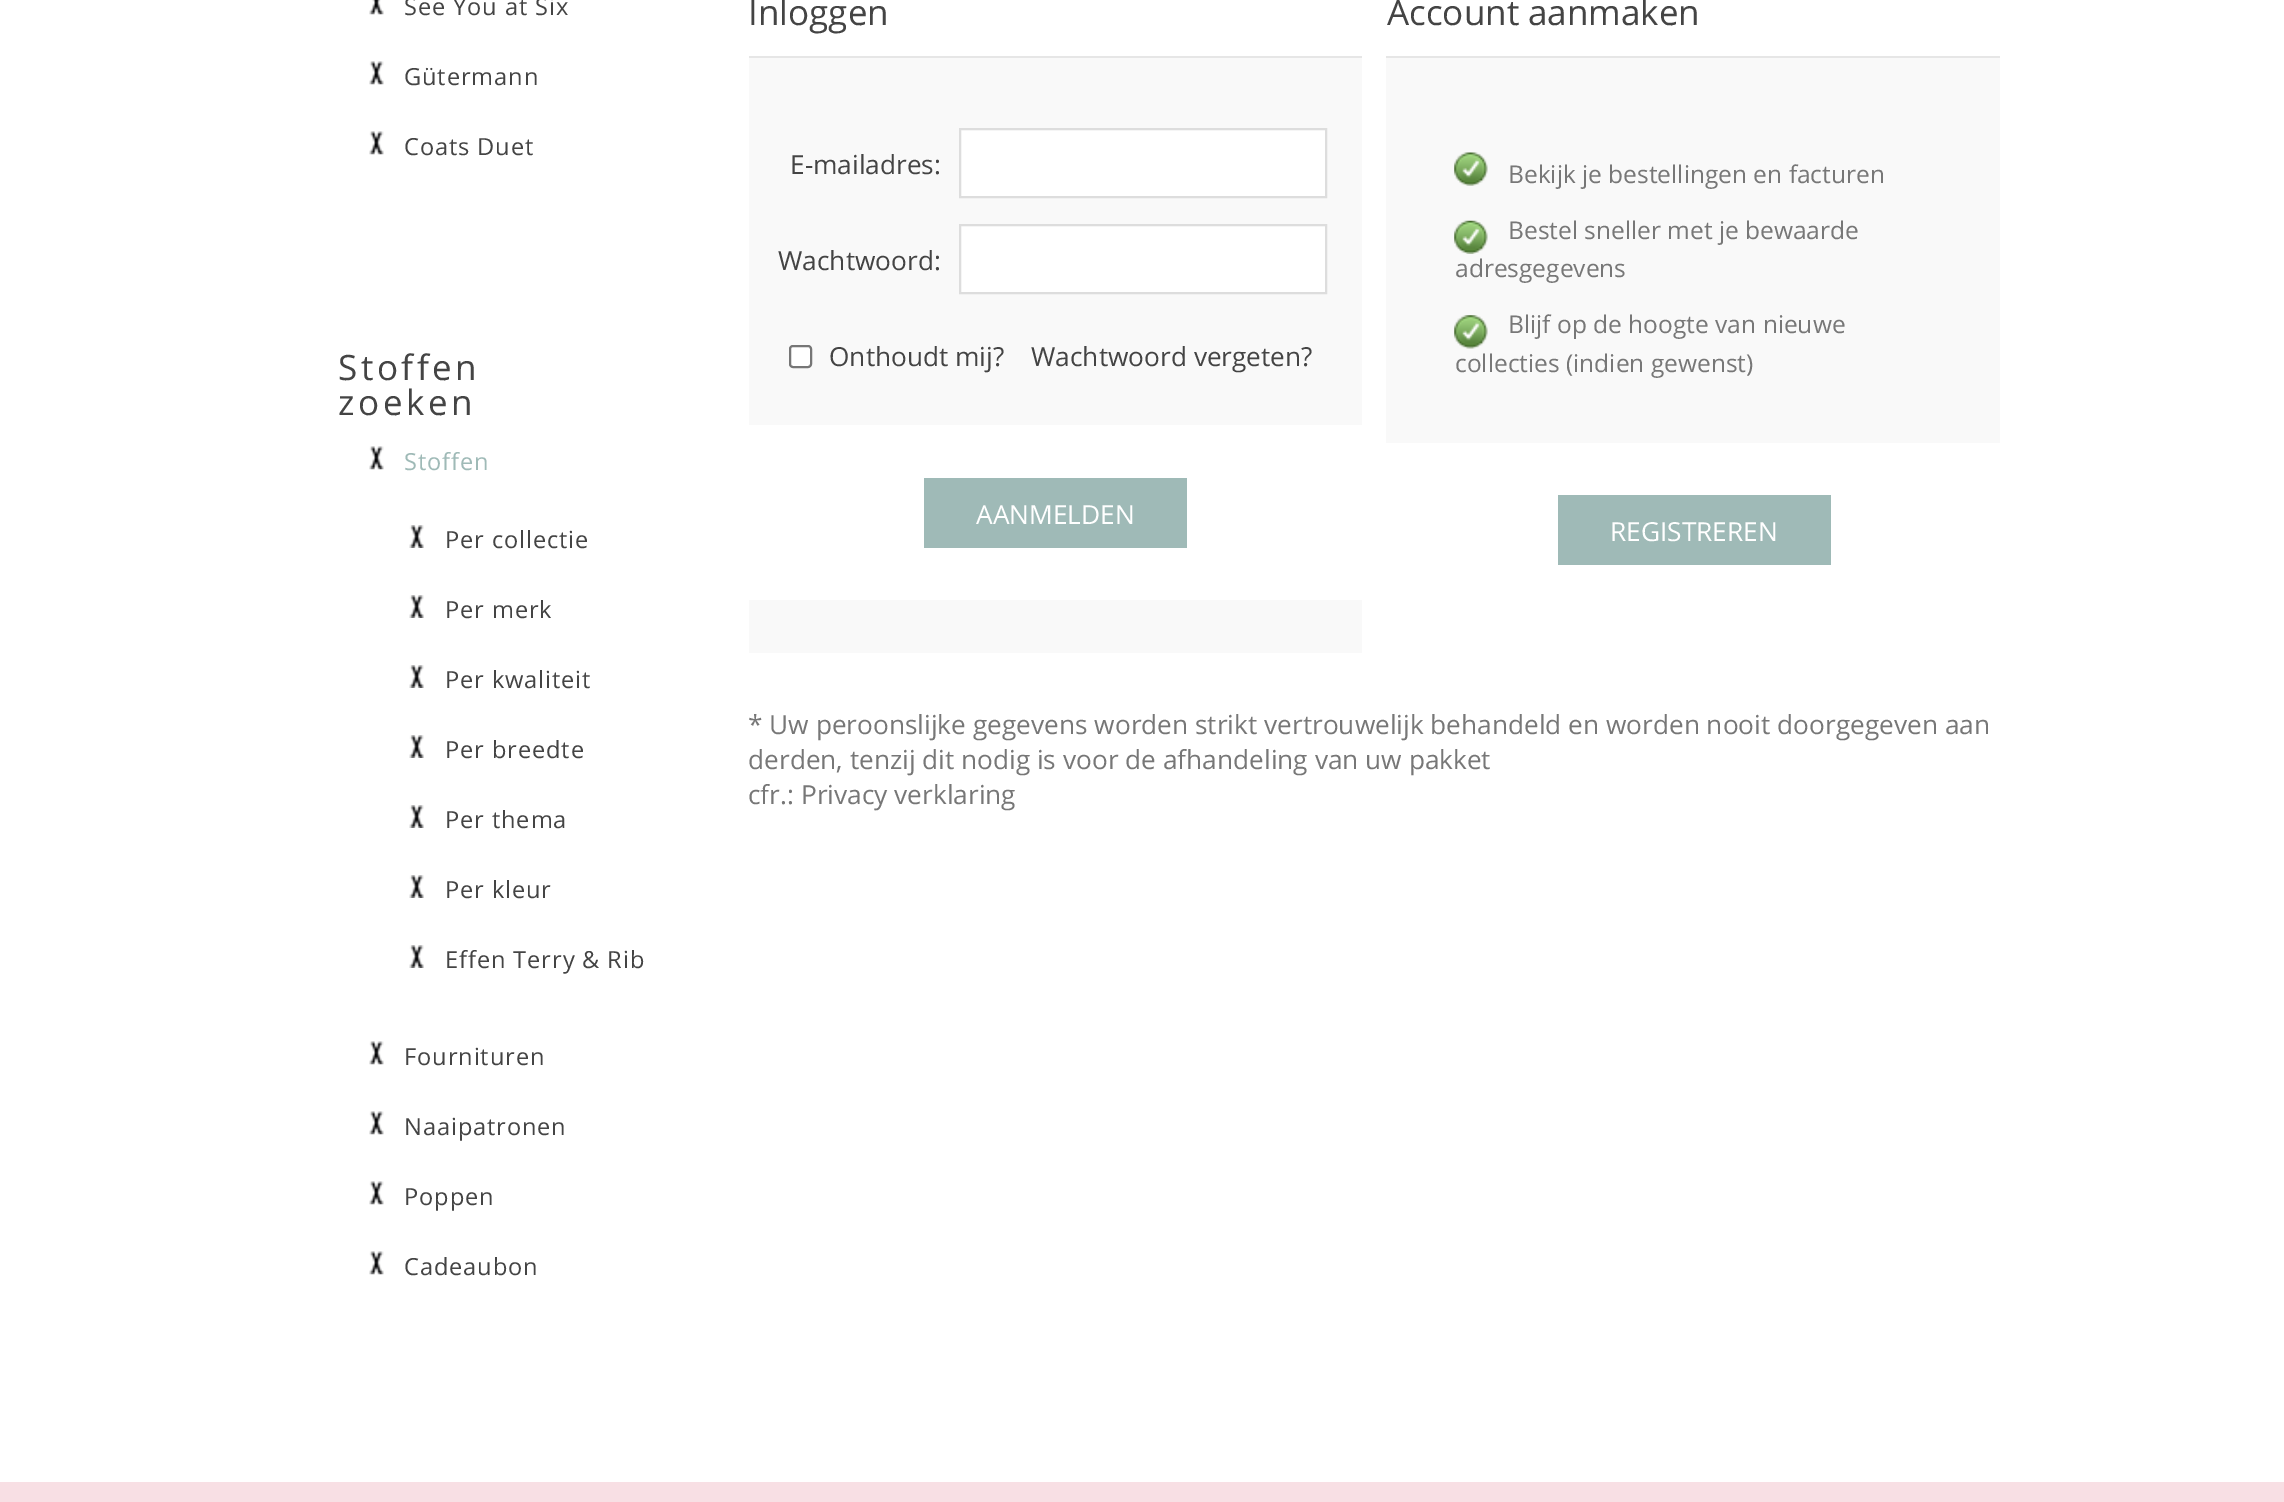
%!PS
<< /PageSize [2284 1502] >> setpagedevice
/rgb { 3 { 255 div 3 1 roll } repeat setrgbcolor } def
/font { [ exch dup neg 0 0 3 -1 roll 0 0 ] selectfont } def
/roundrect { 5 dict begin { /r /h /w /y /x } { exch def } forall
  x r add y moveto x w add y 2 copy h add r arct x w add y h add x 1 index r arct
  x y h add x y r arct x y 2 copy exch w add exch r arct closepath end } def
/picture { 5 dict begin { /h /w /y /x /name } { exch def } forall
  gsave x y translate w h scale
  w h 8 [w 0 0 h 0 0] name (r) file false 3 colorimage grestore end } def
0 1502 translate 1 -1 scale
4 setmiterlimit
255 255 255 rgb
0 0 2284 1502 rectfill
(img/1.rgb) 369 0 15 15 picture
(img/2.rgb) 369 61 15 24 picture
(img/2.rgb) 369 131 15 24 picture
(img/2.rgb) 369 446 15 24 picture
(img/3.rgb) 409 525 15 23 picture
(img/3.rgb) 409 595 15 23 picture
(img/3.rgb) 409 665 15 23 picture
(img/3.rgb) 409 735 15 23 picture
(img/3.rgb) 409 805 15 23 picture
(img/3.rgb) 409 875 15 23 picture
(img/3.rgb) 409 945 15 23 picture
(img/2.rgb) 369 1041 15 24 picture
(img/2.rgb) 369 1111 15 24 picture
(img/4.rgb) 369 1181 15 24 picture
(img/2.rgb) 369 1251 15 24 picture
249 249 249 rgb
749 58 613 595 rectfill
230 230 230 rgb
749 56 613 2 rectfill
255 255 255 rgb
960 129 moveto 1326 129 lineto 1326 197 lineto 960 197 lineto closepath gsave fill grestore
221 221 221 rgb
2 setlinewidth
stroke
255 255 255 rgb
960 225 moveto 1326 225 lineto 1326 293 lineto 960 293 lineto closepath gsave fill grestore
221 221 221 rgb
stroke
255 255 255 rgb
790 346 21 21 3 roundrect gsave fill grestore
118 118 118 rgb
stroke
[
  [749 425 613 175 255 255 255]
  [924 478 263 70 159 186 183]
  [1386 58 614 385 249 249 249]
  [1386 56 614 2 230 230 230]
] { aload pop rgb rectfill } forall
(img/5.rgb) 1454 152 34 34 picture
(img/6.rgb) 1454 220 34 34 picture
(img/7.rgb) 1454 315 34 34 picture
159 186 183 rgb
1558 495 273 70 rectfill
248 223 228 rgb
0 1482 2284 20 rectfill
/OpenSans-Regular 23.6 font
68 68 68 rgb
404 15 moveto 0.9 0 (See You at Six) ashow
404 85 moveto 0.9 0 (Gütermann) ashow
404 155 moveto 0.9 0 (Coats Duet) ashow
/OpenSans-Regular 35 font
338 380 moveto 3.5 0 (Stoffen) ashow
338 415 moveto 3.5 0 (zoeken) ashow
/OpenSans-Regular 23.6 font
159 186 183 rgb
404 470 moveto 0.9 0 (Stoffen) ashow
68 68 68 rgb
445 548 moveto 0.9 0 (Per collectie) ashow
445 618 moveto 0.9 0 (Per merk) ashow
445 688 moveto 0.9 0 (Per kwaliteit) ashow
445 758 moveto 0.9 0 (Per breedte) ashow
445 828 moveto 0.9 0 (Per thema) ashow
445 898 moveto 0.9 0 (Per kleur) ashow
445 968 moveto 0.9 0 (Effen Terry & Rib) ashow
404 1065 moveto 0.9 0 (Fournituren) ashow
404 1135 moveto 0.9 0 (Naaipatronen) ashow
404 1205 moveto 0.9 0 (Poppen) ashow
404 1275 moveto 0.9 0 (Cadeaubon) ashow
/OpenSans-Regular 35 font
748 25 moveto (Inloggen) show
/OpenSans-Regular 26.25 font
[
  [(E-mailadres:) 790 174]
  [(Wachtwoord:) 778 270]
  [(Onthoudt mij?) 829 366]
  [(Wachtwoord vergeten?) 1031 366]
] { aload pop moveto show } forall
255 255 255 rgb
976 524 moveto (AANMELDEN) show
/OpenSans-Regular 35 font
68 68 68 rgb
1387 25 moveto (Account aanmaken) show
/OpenSans-Regular 24.5 font
119 119 119 rgb
[
  [(Bekijk je bestellingen en facturen) 1508 183]
  [(Bestel sneller met je bewaarde) 1508 239]
  [(adresgegevens) 1455 277]
  [(Blijf op de hoogte van nieuwe) 1508 333]
  [(collecties \(indien gewenst\)) 1455 372]
] { aload pop moveto show } forall
/OpenSans-Regular 26.25 font
255 255 255 rgb
1610 541 moveto (REGISTREREN) show
119 119 119 rgb
[
  [(* Uw peroonslijke gegevens worden strikt vertrouwelijk behandeld en worden nooit doorgegeven aan) 748 734]
  [(derden, tenzij dit nodig is voor de afhandeling van uw pakket) 748 769]
  [(cfr.: Privacy verklaring) 748 804]
] { aload pop moveto show } forall
showpage
